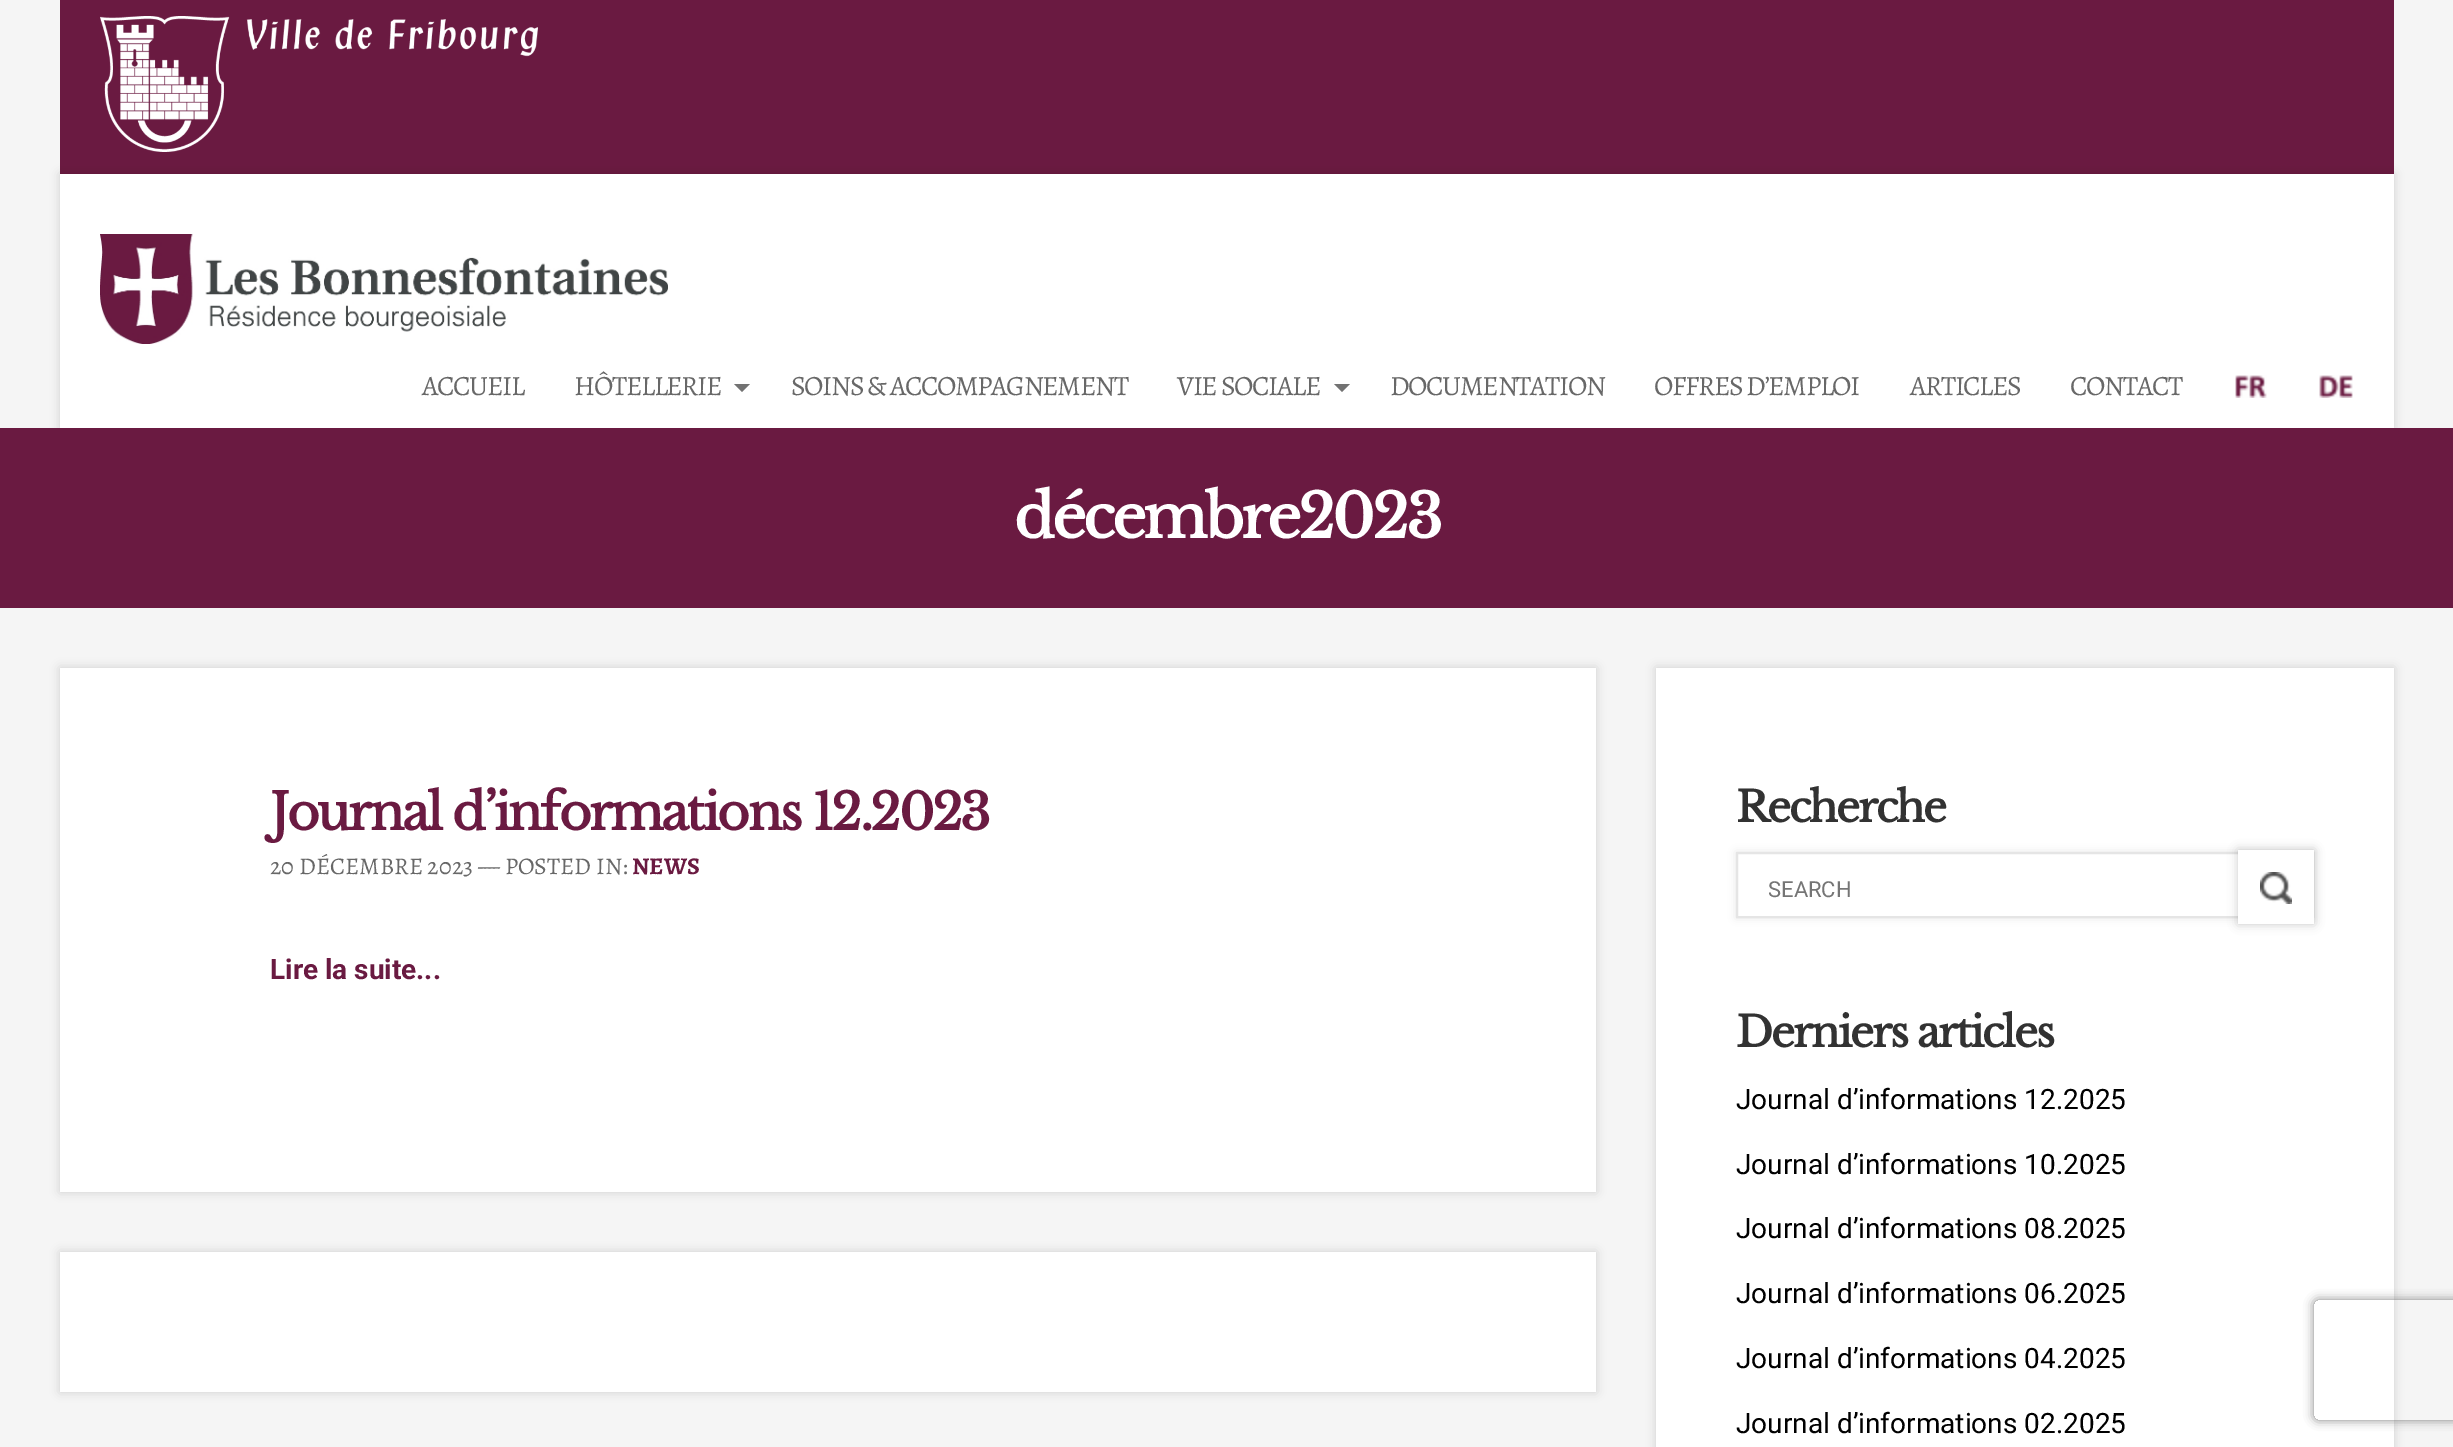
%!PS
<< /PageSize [2453 1447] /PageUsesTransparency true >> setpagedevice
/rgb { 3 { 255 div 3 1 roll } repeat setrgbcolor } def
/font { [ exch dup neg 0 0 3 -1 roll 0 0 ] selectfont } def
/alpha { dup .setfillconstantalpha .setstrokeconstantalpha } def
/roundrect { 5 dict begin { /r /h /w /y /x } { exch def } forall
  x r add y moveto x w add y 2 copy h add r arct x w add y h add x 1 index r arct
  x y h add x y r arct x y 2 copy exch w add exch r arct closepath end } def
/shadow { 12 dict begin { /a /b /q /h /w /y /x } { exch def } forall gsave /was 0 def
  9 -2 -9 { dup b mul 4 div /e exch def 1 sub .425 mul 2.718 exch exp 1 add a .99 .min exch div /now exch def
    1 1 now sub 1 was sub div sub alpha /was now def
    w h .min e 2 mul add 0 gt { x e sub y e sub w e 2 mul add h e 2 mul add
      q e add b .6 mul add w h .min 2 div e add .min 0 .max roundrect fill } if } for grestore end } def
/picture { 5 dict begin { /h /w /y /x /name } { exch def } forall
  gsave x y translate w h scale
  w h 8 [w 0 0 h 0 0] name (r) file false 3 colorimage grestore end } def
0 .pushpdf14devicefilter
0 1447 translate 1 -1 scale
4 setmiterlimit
245 245 245 rgb
0 0 2453 1447 rectfill
106 26 65 rgb
60 0 2334 174 rectfill
(img/1.rgb) 100 16 438 136 picture
0 0 0 rgb
60 174 2334 254 0 5 0.15 shadow
255 255 255 rgb
60 174 2334 254 rectfill
(img/2.rgb) 100 234 568 110 picture
114 114 114 rgb
734 384 moveto 750 384 lineto 742 392 lineto closepath fill
1334 384 moveto 1350 384 lineto 1342 392 lineto closepath fill
(img/3.rgb) 2235 375 32 23 picture
(img/4.rgb) 2319 375 34 23 picture
106 26 65 rgb
0 428 2453 180 rectfill
0 0 0 rgb
60 668 1536 524 0 5 0.15 shadow
255 255 255 rgb
60 668 1536 524 rectfill
0 0 0 rgb
60 1252 1536 140 0 5 0.15 shadow
255 255 255 rgb
60 1252 1536 140 rectfill
0 0 0 rgb
1656 668 738 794 0 5 0.15 shadow
255 255 255 rgb
1656 668 738 779 rectfill
gsave
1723 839 moveto 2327 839 lineto 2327 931 lineto 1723 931 lineto closepath 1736 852 moveto 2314 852 lineto 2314 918 lineto 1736 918 lineto closepath eoclip newpath
0 0 0 rgb
1736 852 578 66 0 4 0.1 shadow
grestore
229 229 229 rgb
2 setlinewidth
1737 853 576 64 rectstroke
0 0 0 rgb
2238 850 76 74 0 5 0.2 shadow
255 255 255 rgb
2238 850 76 74 rectfill
(img/5.rgb) 2260 872 32 32 picture
gsave
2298 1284 moveto 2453 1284 lineto 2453 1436 lineto 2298 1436 lineto closepath 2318 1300 moveto 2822 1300 lineto 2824 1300 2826 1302 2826 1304 curveto 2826 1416 lineto 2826 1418 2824 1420 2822 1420 curveto 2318 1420 lineto 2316 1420 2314 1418 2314 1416 curveto 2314 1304 lineto 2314 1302 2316 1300 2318 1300 curveto closepath eoclip newpath
128 128 128 rgb
2314 1300 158 120 4 5 1 shadow
grestore
/Alegreya-Regular 28 font
104 104 104 rgb
422 395 moveto -1.4 0 (ACCUEIL) ashow
574 395 moveto -1.4 0 (HÔTELLERIE) ashow
791 395 moveto -1.4 0 (SOINS & ACCOMPAGNEMENT) ashow
1177 395 moveto -1.4 0 (VIE SOCIALE) ashow
1390 395 moveto -1.4 0 (DOCUMENTATION) ashow
1654 395 moveto -1.4 0 (OFFRES D’EMPLOI) ashow
1910 395 moveto -1.4 0 (ARTICLES) ashow
2070 395 moveto -1.4 0 (CONTACT) ashow
/LibreBaskerville-Bold 60 font
255 255 255 rgb
1014 538 moveto -3 0 (décembre2023) ashow
/LibreBaskerville-Bold 50 font
106 26 65 rgb
270 830 moveto -2.5 0 (Journal d’informations 12.2023) ashow
/Alegreya-Regular 24 font
104 104 104 rgb
270 874 moveto (20 DÉCEMBRE 2023 — POSTED IN:) show
/Alegreya-Bold 24 font
106 26 65 rgb
632 874 moveto (NEWS) show
/Roboto-Bold 28 font
270 979 moveto (Lire la suite...) show
/LibreBaskerville-Bold 42 font
50 50 50 rgb
1736 822 moveto -2.1 0 (Recherche) ashow
/Roboto-Regular 22 font
117 117 117 rgb
1768 897 moveto (SEARCH) show
/LibreBaskerville-Bold 42 font
50 50 50 rgb
1736 1047 moveto -2.1 0 (Derniers articles) ashow
/Roboto-Regular 28 font
0 0 0 rgb
[
  [(Journal d’informations 12.2025) 1736 1109]
  [(Journal d’informations 10.2025) 1736 1174]
  [(Journal d’informations 08.2025) 1736 1238]
  [(Journal d’informations 06.2025) 1736 1303]
  [(Journal d’informations 04.2025) 1736 1368]
  [(Journal d’informations 02.2025) 1736 1433]
] { aload pop moveto show } forall
.poppdf14devicefilter showpage
